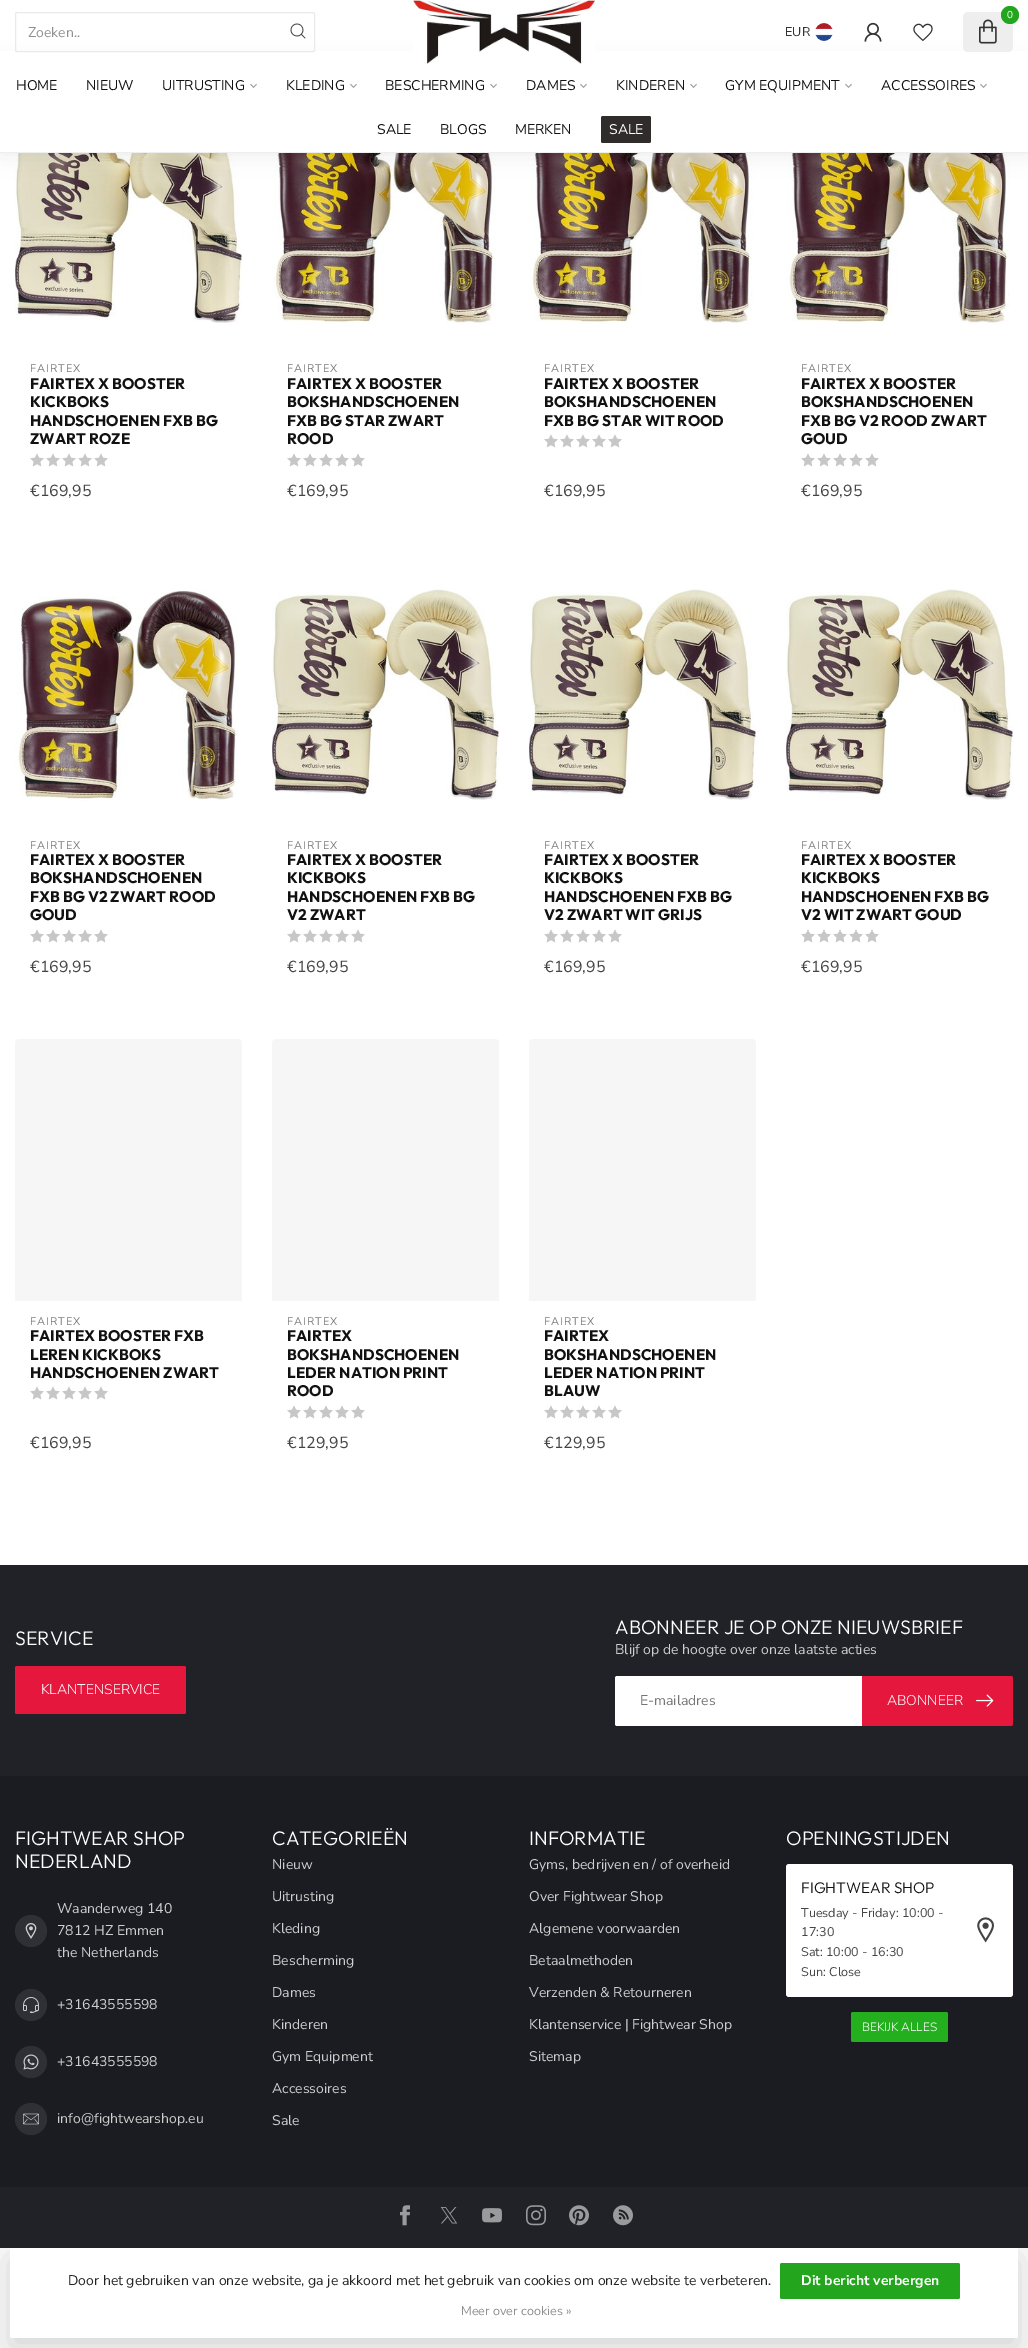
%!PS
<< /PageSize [1028 2348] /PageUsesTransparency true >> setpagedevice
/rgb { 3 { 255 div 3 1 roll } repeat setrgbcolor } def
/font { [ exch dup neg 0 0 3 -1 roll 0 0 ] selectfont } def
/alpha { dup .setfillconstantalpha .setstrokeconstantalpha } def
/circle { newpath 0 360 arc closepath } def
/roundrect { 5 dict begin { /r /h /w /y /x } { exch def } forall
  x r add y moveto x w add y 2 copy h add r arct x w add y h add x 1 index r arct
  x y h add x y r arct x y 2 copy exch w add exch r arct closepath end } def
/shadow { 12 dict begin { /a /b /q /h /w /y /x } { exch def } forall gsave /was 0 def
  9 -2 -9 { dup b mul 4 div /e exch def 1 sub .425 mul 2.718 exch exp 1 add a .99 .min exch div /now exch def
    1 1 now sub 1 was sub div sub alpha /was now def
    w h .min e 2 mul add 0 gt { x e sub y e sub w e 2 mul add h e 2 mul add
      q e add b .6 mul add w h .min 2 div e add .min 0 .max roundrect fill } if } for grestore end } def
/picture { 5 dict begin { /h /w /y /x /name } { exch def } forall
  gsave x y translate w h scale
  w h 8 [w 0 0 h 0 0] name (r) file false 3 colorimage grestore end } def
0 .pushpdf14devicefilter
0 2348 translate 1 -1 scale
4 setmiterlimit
255 255 255 rgb
0 0 1028 2348 rectfill
(img/8.rgb) 15 153 227 170 picture
(img/10.rgb) 272 153 224 171 picture
(img/10.rgb) 529 153 224 171 picture
(img/10.rgb) 786 153 224 171 picture
0 0 0 rgb
0 64 1028 89 0 11 0.08 shadow
255 255 255 rgb
0 51 1028 101 rectfill
234 234 234 rgb
15.5 12.5 299 39 1.5 roundrect stroke
(img/1.rgb) 290 23 16 16 picture
(img/2.rgb) 413 0 182 64 picture
238 238 238 rgb
963 12 50 40 5 roundrect fill
35 166 30 rgb
1010 15 9 circle fill
(img/3.rgb) 979 19 18 25 picture
(img/4.rgb) 815 23 18 18 picture
(img/5.rgb) 864 22 18 20 picture
(img/6.rgb) 913 23 20 18 picture
238 238 238 rgb
0 152 1028 1 rectfill
(img/7.rgb) 250 83 7 5 picture
(img/7.rgb) 350 83 7 5 picture
(img/7.rgb) 490 83 7 5 picture
(img/7.rgb) 580 83 7 5 picture
(img/7.rgb) 690 83 7 5 picture
(img/7.rgb) 845 83 7 5 picture
(img/7.rgb) 980 83 7 5 picture
49 44 44 rgb
601 116 50 27 2 roundrect fill
(img/9.rgb) 30 453 14 14 picture
(img/9.rgb) 46 453 14 14 picture
(img/9.rgb) 62 453 14 14 picture
(img/9.rgb) 78 453 14 14 picture
(img/9.rgb) 94 453 14 14 picture
(img/9.rgb) 287 453 14 14 picture
(img/9.rgb) 303 453 14 14 picture
(img/9.rgb) 319 453 14 14 picture
(img/9.rgb) 335 453 14 14 picture
(img/9.rgb) 351 453 14 14 picture
(img/9.rgb) 544 434 14 14 picture
(img/9.rgb) 560 434 14 14 picture
(img/9.rgb) 576 434 14 14 picture
(img/9.rgb) 592 434 14 14 picture
(img/9.rgb) 608 434 14 14 picture
(img/9.rgb) 801 453 14 14 picture
(img/9.rgb) 817 453 14 14 picture
(img/9.rgb) 833 453 14 14 picture
(img/9.rgb) 849 453 14 14 picture
(img/9.rgb) 865 453 14 14 picture
(img/11.rgb) 15 588 223 213 picture
(img/9.rgb) 30 929 14 14 picture
(img/9.rgb) 46 929 14 14 picture
(img/9.rgb) 62 929 14 14 picture
(img/9.rgb) 78 929 14 14 picture
(img/9.rgb) 94 929 14 14 picture
(img/12.rgb) 272 589 227 211 picture
(img/9.rgb) 287 929 14 14 picture
(img/9.rgb) 303 929 14 14 picture
(img/9.rgb) 319 929 14 14 picture
(img/9.rgb) 335 929 14 14 picture
(img/9.rgb) 351 929 14 14 picture
(img/12.rgb) 529 589 227 211 picture
(img/9.rgb) 544 929 14 14 picture
(img/9.rgb) 560 929 14 14 picture
(img/9.rgb) 576 929 14 14 picture
(img/9.rgb) 592 929 14 14 picture
(img/9.rgb) 608 929 14 14 picture
(img/12.rgb) 786 589 227 211 picture
(img/9.rgb) 801 929 14 14 picture
(img/9.rgb) 817 929 14 14 picture
(img/9.rgb) 833 929 14 14 picture
(img/9.rgb) 849 929 14 14 picture
(img/9.rgb) 865 929 14 14 picture
246 246 246 rgb
19 1039 moveto 238 1039 lineto 240 1039 242 1041 242 1043 curveto 242 1301 lineto 15 1301 lineto 15 1043 lineto 15 1041 17 1039 19 1039 curveto closepath fill
(img/9.rgb) 30 1386 14 14 picture
(img/9.rgb) 46 1386 14 14 picture
(img/9.rgb) 62 1386 14 14 picture
(img/9.rgb) 78 1386 14 14 picture
(img/9.rgb) 94 1386 14 14 picture
276 1039 moveto 495 1039 lineto 497 1039 499 1041 499 1043 curveto 499 1301 lineto 272 1301 lineto 272 1043 lineto 272 1041 274 1039 276 1039 curveto closepath fill
(img/9.rgb) 287 1405 14 14 picture
(img/9.rgb) 303 1405 14 14 picture
(img/9.rgb) 319 1405 14 14 picture
(img/9.rgb) 335 1405 14 14 picture
(img/9.rgb) 351 1405 14 14 picture
533 1039 moveto 752 1039 lineto 754 1039 756 1041 756 1043 curveto 756 1301 lineto 529 1301 lineto 529 1043 lineto 529 1041 531 1039 533 1039 curveto closepath fill
(img/9.rgb) 544 1405 14 14 picture
(img/9.rgb) 560 1405 14 14 picture
(img/9.rgb) 576 1405 14 14 picture
(img/9.rgb) 592 1405 14 14 picture
(img/9.rgb) 608 1405 14 14 picture
27 28 33 rgb
0 1776 1028 411 rectfill
33 34 39 rgb
0 1565 1028 211 rectfill
229 23 61 rgb
15 1666 171 48 2 roundrect fill
255 255 255 rgb
617 1676 moveto 862 1676 lineto 862 1726 lineto 617 1726 lineto 616 1726 615 1725 615 1724 curveto 615 1678 lineto 615 1677 616 1676 617 1676 curveto closepath fill
229 23 61 rgb
862 1676 moveto 1011 1676 lineto 1012 1676 1013 1677 1013 1678 curveto 1013 1724 lineto 1013 1725 1012 1726 1011 1726 curveto 862 1726 lineto closepath fill
(img/13.rgb) 976 1694 18 13 picture
47 48 53 rgb
31 1931 16 circle fill
(img/14.rgb) 25 1923 12 16 picture
31 2005 16 circle fill
(img/15.rgb) 23 1997 16 16 picture
31 2062 16 circle fill
(img/16.rgb) 23 2054 16 16 picture
31 2119 16 circle fill
(img/17.rgb) 23 2113 16 12 picture
255 255 255 rgb
786 1864 227 133 3 roundrect fill
(img/18.rgb) 977 1917 17 26 picture
35 175 30 rgb
851 2012 97 30 2 roundrect fill
33 34 39 rgb
0 2187 1028 61 rectfill
(img/19.rgb) 400 2205 10 21 picture
(img/20.rgb) 440 2207 18 17 picture
(img/21.rgb) 482 2208 20 15 picture
(img/22.rgb) 526 2205 20 21 picture
(img/23.rgb) 569 2205 20 21 picture
(img/24.rgb) 613 2205 20 21 picture
250 250 250 rgb
0 2248 1028 100 rectfill
0 0 0 rgb
10 2258 1008 90 2 15 0.15 shadow
255 255 255 rgb
10 2248 1008 90 2 roundrect fill
35 166 30 rgb
780 2263 180 36 2 roundrect fill
/NunitoSans-Regular 14 font
143 143 143 rgb
28 37 moveto (Zoeken..) show
/NunitoSans-Regular 10 font
255 255 255 rgb
1007 18 moveto (0) show
/NunitoSans-Regular 12.6 font
51 51 51 rgb
785 36 moveto (EUR) show
/NunitoSans-Regular 14 font
17 17 17 rgb
[
  [(HOME) 16 90]
  [(NIEUW) 86 90]
  [(UITRUSTING) 162 90]
  [(KLEDING) 286 90]
  [(BESCHERMING) 385 90]
  [(DAMES) 526 90]
  [(KINDEREN) 616 90]
  [(GYM EQUIPMENT) 725 90]
  [(ACCESSOIRES) 881 90]
  [(SALE) 377 134]
  [(BLOGS) 440 134]
  [(MERKEN) 515 134]
] { aload pop moveto show } forall
255 255 255 rgb
609 134 moveto (SALE) show
/NunitoSans-Regular 11 font
124 124 124 rgb
30 372 moveto 1 0 (FAIRTEX) ashow
/Outfit-Bold 15.4 font
17 17 17 rgb
[
  [(FAIRTEX X BOOSTER) 30 389]
  [(KICKBOKS) 30 407]
  [(HANDSCHOENEN FXB BG) 30 426]
  [(ZWART ROZE) 30 444]
] { aload pop moveto show } forall
/NunitoSans-Regular 16 font
68 68 68 rgb
30 496 moveto (€169,95) show
/NunitoSans-Regular 11 font
124 124 124 rgb
287 372 moveto 1 0 (FAIRTEX) ashow
/Outfit-Bold 15.4 font
17 17 17 rgb
[
  [(FAIRTEX X BOOSTER) 287 389]
  [(BOKSHANDSCHOENEN) 287 407]
  [(FXB BG STAR ZWART) 287 426]
  [(ROOD) 287 444]
] { aload pop moveto show } forall
/NunitoSans-Regular 16 font
68 68 68 rgb
287 496 moveto (€169,95) show
/NunitoSans-Regular 11 font
124 124 124 rgb
544 372 moveto 1 0 (FAIRTEX) ashow
/Outfit-Bold 15.4 font
17 17 17 rgb
[
  [(FAIRTEX X BOOSTER) 544 389]
  [(BOKSHANDSCHOENEN) 544 407]
  [(FXB BG STAR WIT ROOD) 544 426]
] { aload pop moveto show } forall
/NunitoSans-Regular 16 font
68 68 68 rgb
544 496 moveto (€169,95) show
/NunitoSans-Regular 11 font
124 124 124 rgb
801 372 moveto 1 0 (FAIRTEX) ashow
/Outfit-Bold 15.4 font
17 17 17 rgb
[
  [(FAIRTEX X BOOSTER) 801 389]
  [(BOKSHANDSCHOENEN) 801 407]
  [(FXB BG V2 ROOD ZWART) 801 426]
  [(GOUD) 801 444]
] { aload pop moveto show } forall
/NunitoSans-Regular 16 font
68 68 68 rgb
801 496 moveto (€169,95) show
/NunitoSans-Regular 11 font
124 124 124 rgb
30 849 moveto 1 0 (FAIRTEX) ashow
/Outfit-Bold 15.4 font
17 17 17 rgb
[
  [(FAIRTEX X BOOSTER) 30 865]
  [(BOKSHANDSCHOENEN) 30 883]
  [(FXB BG V2 ZWART ROOD) 30 902]
  [(GOUD) 30 920]
] { aload pop moveto show } forall
/NunitoSans-Regular 16 font
68 68 68 rgb
30 972 moveto (€169,95) show
/NunitoSans-Regular 11 font
124 124 124 rgb
287 849 moveto 1 0 (FAIRTEX) ashow
/Outfit-Bold 15.4 font
17 17 17 rgb
[
  [(FAIRTEX X BOOSTER) 287 865]
  [(KICKBOKS) 287 883]
  [(HANDSCHOENEN FXB BG) 287 902]
  [(V2 ZWART) 287 920]
] { aload pop moveto show } forall
/NunitoSans-Regular 16 font
68 68 68 rgb
287 972 moveto (€169,95) show
/NunitoSans-Regular 11 font
124 124 124 rgb
544 849 moveto 1 0 (FAIRTEX) ashow
/Outfit-Bold 15.4 font
17 17 17 rgb
[
  [(FAIRTEX X BOOSTER) 544 865]
  [(KICKBOKS) 544 883]
  [(HANDSCHOENEN FXB BG) 544 902]
  [(V2 ZWART WIT GRIJS) 544 920]
] { aload pop moveto show } forall
/NunitoSans-Regular 16 font
68 68 68 rgb
544 972 moveto (€169,95) show
/NunitoSans-Regular 11 font
124 124 124 rgb
801 849 moveto 1 0 (FAIRTEX) ashow
/Outfit-Bold 15.4 font
17 17 17 rgb
[
  [(FAIRTEX X BOOSTER) 801 865]
  [(KICKBOKS) 801 883]
  [(HANDSCHOENEN FXB BG) 801 902]
  [(V2 WIT ZWART GOUD) 801 920]
] { aload pop moveto show } forall
/NunitoSans-Regular 16 font
68 68 68 rgb
801 972 moveto (€169,95) show
/NunitoSans-Regular 11 font
124 124 124 rgb
30 1325 moveto 1 0 (FAIRTEX) ashow
/Outfit-Bold 15.4 font
17 17 17 rgb
[
  [(FAIRTEX BOOSTER FXB) 30 1341]
  [(LEREN KICKBOKS) 30 1360]
  [(HANDSCHOENEN ZWART) 30 1378]
] { aload pop moveto show } forall
/NunitoSans-Regular 16 font
68 68 68 rgb
30 1448 moveto (€169,95) show
/NunitoSans-Regular 11 font
124 124 124 rgb
287 1325 moveto 1 0 (FAIRTEX) ashow
/Outfit-Bold 15.4 font
17 17 17 rgb
[
  [(FAIRTEX) 287 1341]
  [(BOKSHANDSCHOENEN) 287 1360]
  [(LEDER NATION PRINT) 287 1378]
  [(ROOD) 287 1396]
] { aload pop moveto show } forall
/NunitoSans-Regular 16 font
68 68 68 rgb
287 1448 moveto (€129,95) show
/NunitoSans-Regular 11 font
124 124 124 rgb
544 1325 moveto 1 0 (FAIRTEX) ashow
/Outfit-Bold 15.4 font
17 17 17 rgb
[
  [(FAIRTEX) 544 1341]
  [(BOKSHANDSCHOENEN) 544 1360]
  [(LEDER NATION PRINT) 544 1378]
  [(BLAUW) 544 1396]
] { aload pop moveto show } forall
/NunitoSans-Regular 16 font
68 68 68 rgb
544 1448 moveto (€129,95) show
/Outfit-Light 19.6 font
255 255 255 rgb
15 1645 moveto (SERVICE) show
/NunitoSans-Light 14 font
41 1694 moveto (KLANTENSERVICE) show
/Outfit-Light 19.6 font
615 1634 moveto (ABONNEER JE OP ONZE NIEUWSBRIEF) show
/NunitoSans-Regular 14 font
207 207 207 rgb
615 1654 moveto (Blijf op de hoogte over onze laatste acties) show
117 117 117 rgb
640 1705 moveto (E-mailadres) show
/NunitoSans-Light 14 font
255 255 255 rgb
887 1705 moveto (ABONNEER) show
/Outfit-Light 19.6 font
15 1845 moveto (FIGHTWEAR SHOP) show
15 1868 moveto (NEDERLAND) show
/NunitoSans-Regular 14 font
207 207 207 rgb
[
  [(Waanderweg 140) 57 1913]
  [(7812 HZ Emmen) 57 1935]
  [(the Netherlands) 57 1957]
  [(+31643555598) 57 2009]
  [(+31643555598) 57 2066]
  [(info@fightwearshop.eu) 57 2123]
] { aload pop moveto show } forall
/Outfit-Light 19.6 font
255 255 255 rgb
272 1845 moveto (CATEGORIEËN) show
/NunitoSans-Regular 14 font
207 207 207 rgb
[
  [(Nieuw) 272 1869]
  [(Uitrusting) 272 1901]
  [(Kleding) 272 1933]
  [(Bescherming) 272 1965]
  [(Dames) 272 1997]
  [(Kinderen) 272 2029]
  [(Gym Equipment) 272 2061]
  [(Accessoires) 272 2093]
  [(Sale) 272 2125]
] { aload pop moveto show } forall
/Outfit-Light 19.6 font
255 255 255 rgb
529 1845 moveto (INFORMATIE) show
/NunitoSans-Regular 14 font
207 207 207 rgb
[
  [(Gyms, bedrijven en / of overheid) 529 1869]
  [(Over Fightwear Shop) 529 1901]
  [(Algemene voorwaarden) 529 1933]
  [(Betaalmethoden) 529 1965]
  [(Verzenden & Retourneren) 529 1997]
  [(Klantenservice | Fightwear Shop) 529 2029]
  [(Sitemap) 529 2061]
] { aload pop moveto show } forall
/Outfit-Light 19.6 font
255 255 255 rgb
786 1845 moveto (OPENINGSTIJDEN) show
/Outfit-Light 15.4 font
17 17 17 rgb
801 1893 moveto (FIGHTWEAR SHOP) show
/NunitoSans-Regular 12.6 font
68 68 68 rgb
[
  [(Tuesday - Friday: 10:00 -) 801 1917]
  [(17:30) 801 1936]
  [(Sat: 10:00 - 16:30) 801 1956]
  [(Sun: Close) 801 1976]
] { aload pop moveto show } forall
/NunitoSans-Light 12 font
255 255 255 rgb
862 2031 moveto (BEKIJK ALLES) show
/NunitoSans-Regular 14 font
34 34 34 rgb
68 2285 moveto (Door het gebruiken van onze website, ga je akkoord met het gebruik van cookies om onze website te verbeteren.) show
/NunitoSans-Bold 14 font
255 255 255 rgb
801 2285 moveto (Dit bericht verbergen) show
/NunitoSans-Regular 12.6 font
143 143 143 rgb
461 2315 moveto (Meer over cookies ») show
.poppdf14devicefilter showpage
